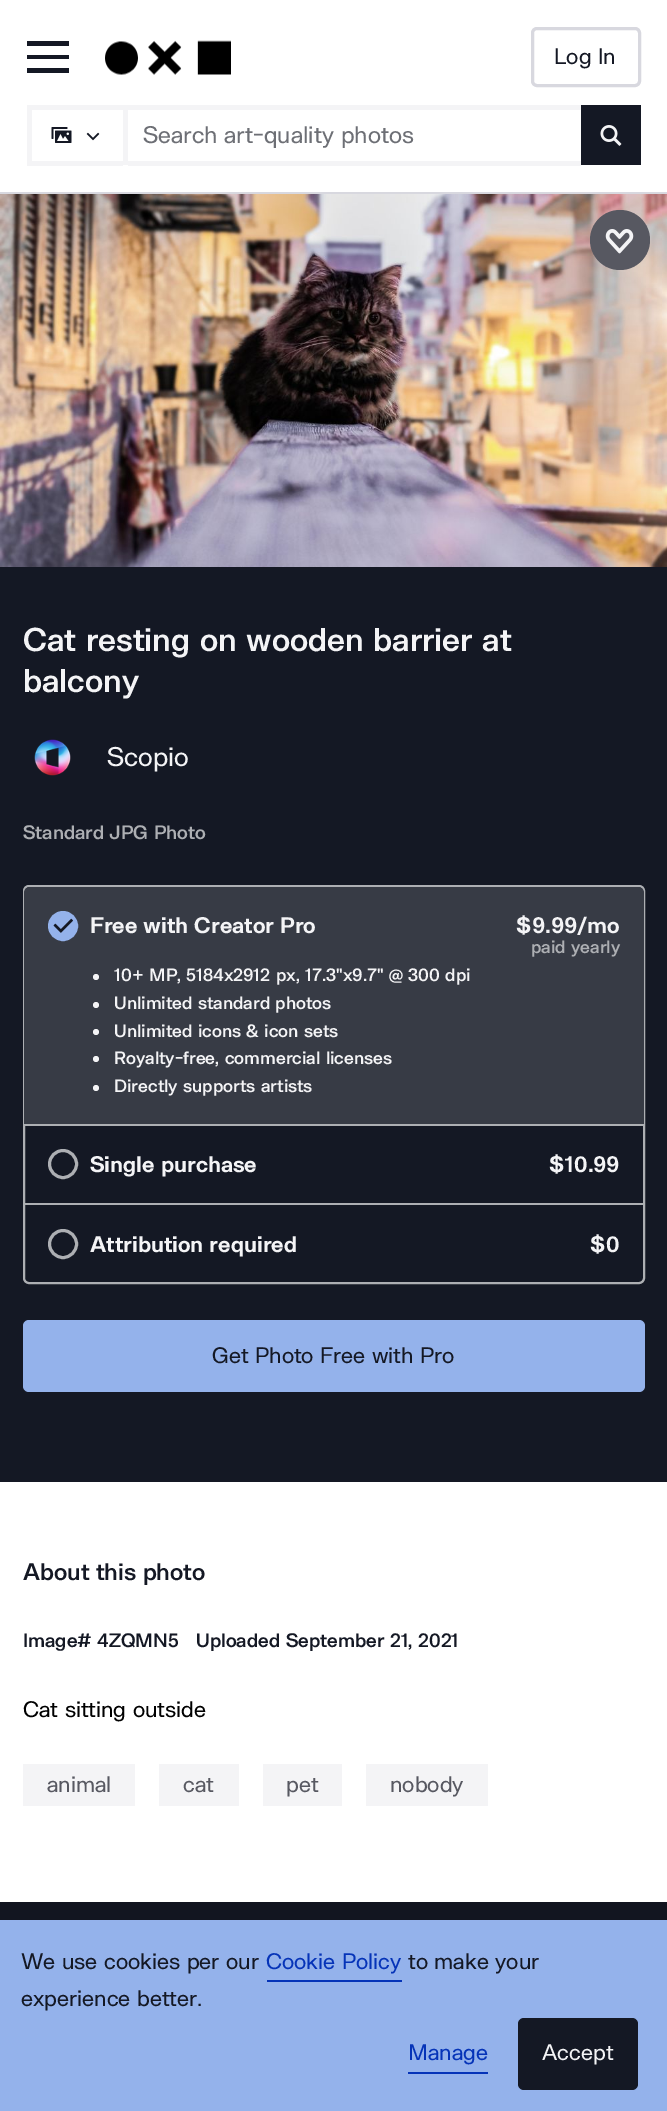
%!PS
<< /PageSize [667 2111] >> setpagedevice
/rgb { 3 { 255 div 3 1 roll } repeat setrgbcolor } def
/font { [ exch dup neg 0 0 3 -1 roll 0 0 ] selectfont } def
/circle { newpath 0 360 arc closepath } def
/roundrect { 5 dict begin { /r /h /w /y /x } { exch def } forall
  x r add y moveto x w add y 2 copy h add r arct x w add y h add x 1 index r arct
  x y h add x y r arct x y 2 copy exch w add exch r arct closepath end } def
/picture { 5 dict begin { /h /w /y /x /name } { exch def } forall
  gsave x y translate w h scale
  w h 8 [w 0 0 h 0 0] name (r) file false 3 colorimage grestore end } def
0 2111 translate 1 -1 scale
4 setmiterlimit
255 255 255 rgb
0 0 667 2111 rectfill
[
  [0 192 667 2 216 216 223]
  [27 41 42 5 20 24 36]
  [27 55 42 4 20 24 36]
  [27 68 42 5 20 24 36]
] { aload pop rgb rectfill } forall
(img/1.rgb) 105 40 126 35 picture
216 216 223 rgb
3 setlinewidth
532.5 28.5 107 57 4.5 roundrect stroke
[
  [27 105 96 5 244 244 246]
  [27 161 96 5 244 244 246]
  [27 105 5 60 244 244 246]
] { aload pop rgb rectfill } forall
(img/2.rgb) 51 127 21 16 picture
(img/3.rgb) 86 132 14 9 picture
[
  [123 105 5 60 244 244 246]
  [128 105 453 5 244 244 246]
  [128 161 453 5 244 244 246]
  [581 105 60 60 20 24 36]
] { aload pop rgb rectfill } forall
(img/4.rgb) 600 125 22 21 picture
0 567 667 915 rectfill
(img/5.rgb) 0 194 667 373 picture
87 88 97 rgb
620 240 30 circle fill
(img/6.rgb) 605 229 29 25 picture
(img/7.rgb) 34 739 37 37 picture
173 175 179 rgb
2 setlinewidth
24 886 620 397 5 roundrect stroke
55 59 69 rgb
30 887 moveto 638 887 lineto 641.5 887 644 889.5 644 893 curveto 644 1124 lineto 24 1124 lineto 24 893 lineto 24 889.5 26.5 887 30 887 curveto closepath fill
148 178 235 rgb
63 926 13.5 circle gsave fill grestore
3 setlinewidth
stroke
(img/8.rgb) 53 918 20 15 picture
244 244 246 rgb
96 977 3 circle fill
96 1005 3 circle fill
96 1032 3 circle fill
96 1059 3 circle fill
96 1088 3 circle fill
173 175 179 rgb
24 1124 620 2 rectfill
63 1164 13.5 circle stroke
24 1203 620 2 rectfill
63 1244 13.5 circle stroke
148 178 235 rgb
23 1320 622 72 6 roundrect fill
[
  [23 1764 112 42 244 244 246]
  [159 1764 80 42 244 244 246]
  [263 1764 79 42 244 244 246]
  [366 1764 122 42 244 244 246]
  [0 1902 667 18 18 21 32]
  [0 1920 667 191 148 178 235]
  [267 1980 135 2 5 51 184]
  [408 2072 80 2 5 51 184]
] { aload pop rgb rectfill } forall
20 24 36 rgb
518 2018 120 72 6 roundrect fill
/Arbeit-Regular 22.5 font
554 64 moveto 2 0 32 (Log In) widthshow
/Arbeit-Regular 24 font
109 111 117 rgb
143 143 moveto 2 0 32 (Search art-quality photos) widthshow
/Arbeit-SemiBold 33 font
244 244 246 rgb
23 651 moveto 3.25 0 32 (Cat resting on wooden barrier at) widthshow
23 692 moveto (balcony) show
/Arbeit-Regular 27 font
107 766 moveto (Scopio) show
/Arbeit-SemiBold 19.5 font
173 175 179 rgb
23 839 moveto 2 0 32 (Standard JPG Photo) widthshow
/Arbeit-Bold 22.5 font
244 244 246 rgb
90 933 moveto 2 0 32 (Free with Creator Pro) widthshow
517 933 moveto ($9.99/mo) show
/Arbeit-SemiBold 18 font
173 175 179 rgb
531 953 moveto 2 0 32 (paid yearly) widthshow
244 244 246 rgb
114 981 moveto 2 0 32 (10+ MP) widthshow
186 981 moveto 2 0 32 (5184x2912 px) widthshow
305 981 moveto (17.3"x9.7") show
389 981 moveto (@) show
408 981 moveto 2 0 32 (300 dpi) widthshow
177 981 moveto (,) show
296 981 moveto (,) show
114 1009 moveto 2 0 32 (Unlimited standard photos) widthshow
114 1037 moveto 2 0 32 (Unlimited icons & icon sets) widthshow
114 1064 moveto 2 0 32 (Royalty-free, commercial licenses) widthshow
114 1092 moveto 2 0 32 (Directly supports artists) widthshow
/Arbeit-Bold 22.5 font
90 1172 moveto 2 0 32 (Single purchase) widthshow
550 1172 moveto ($10.99) show
90 1252 moveto 2 0 32 (Attribution required) widthshow
591 1252 moveto ($0) show
/Arbeit-Regular 22.5 font
20 24 36 rgb
212 1363 moveto 2 0 32 (Get Photo Free with Pro) widthshow
/Arbeit-SemiBold 24 font
23 1580 moveto 2 0 32 (About this photo) widthshow
/Arbeit-SemiBold 19.5 font
[
  [(Image#) 23 1647]
  [(4ZQMN5) 97 1647]
  [(Uploaded) 196 1647]
] { aload pop moveto show } forall
286 1647 moveto 2 0 32 (September 21, 2021) widthshow
/Arbeit-Regular 22.5 font
0 0 0 rgb
23 1717 moveto 2 0 32 (Cat sitting outside) widthshow
87 88 97 rgb
[
  [(animal) 47 1792]
  [(cat) 183 1792]
  [(pet) 286 1792]
  [(nobody) 390 1792]
] { aload pop moveto show } forall
20 24 36 rgb
21 1969 moveto 2 0 32 (We use cookies per our) widthshow
5 51 184 rgb
266 1969 moveto 2 0 32 (Cookie Policy) widthshow
20 24 36 rgb
408 1969 moveto 2 0 32 (to make your) widthshow
21 2006 moveto 2 0 32 (experience better.) widthshow
5 51 184 rgb
408 2060 moveto (Manage) show
244 244 246 rgb
542 2060 moveto (Accept) show
showpage
